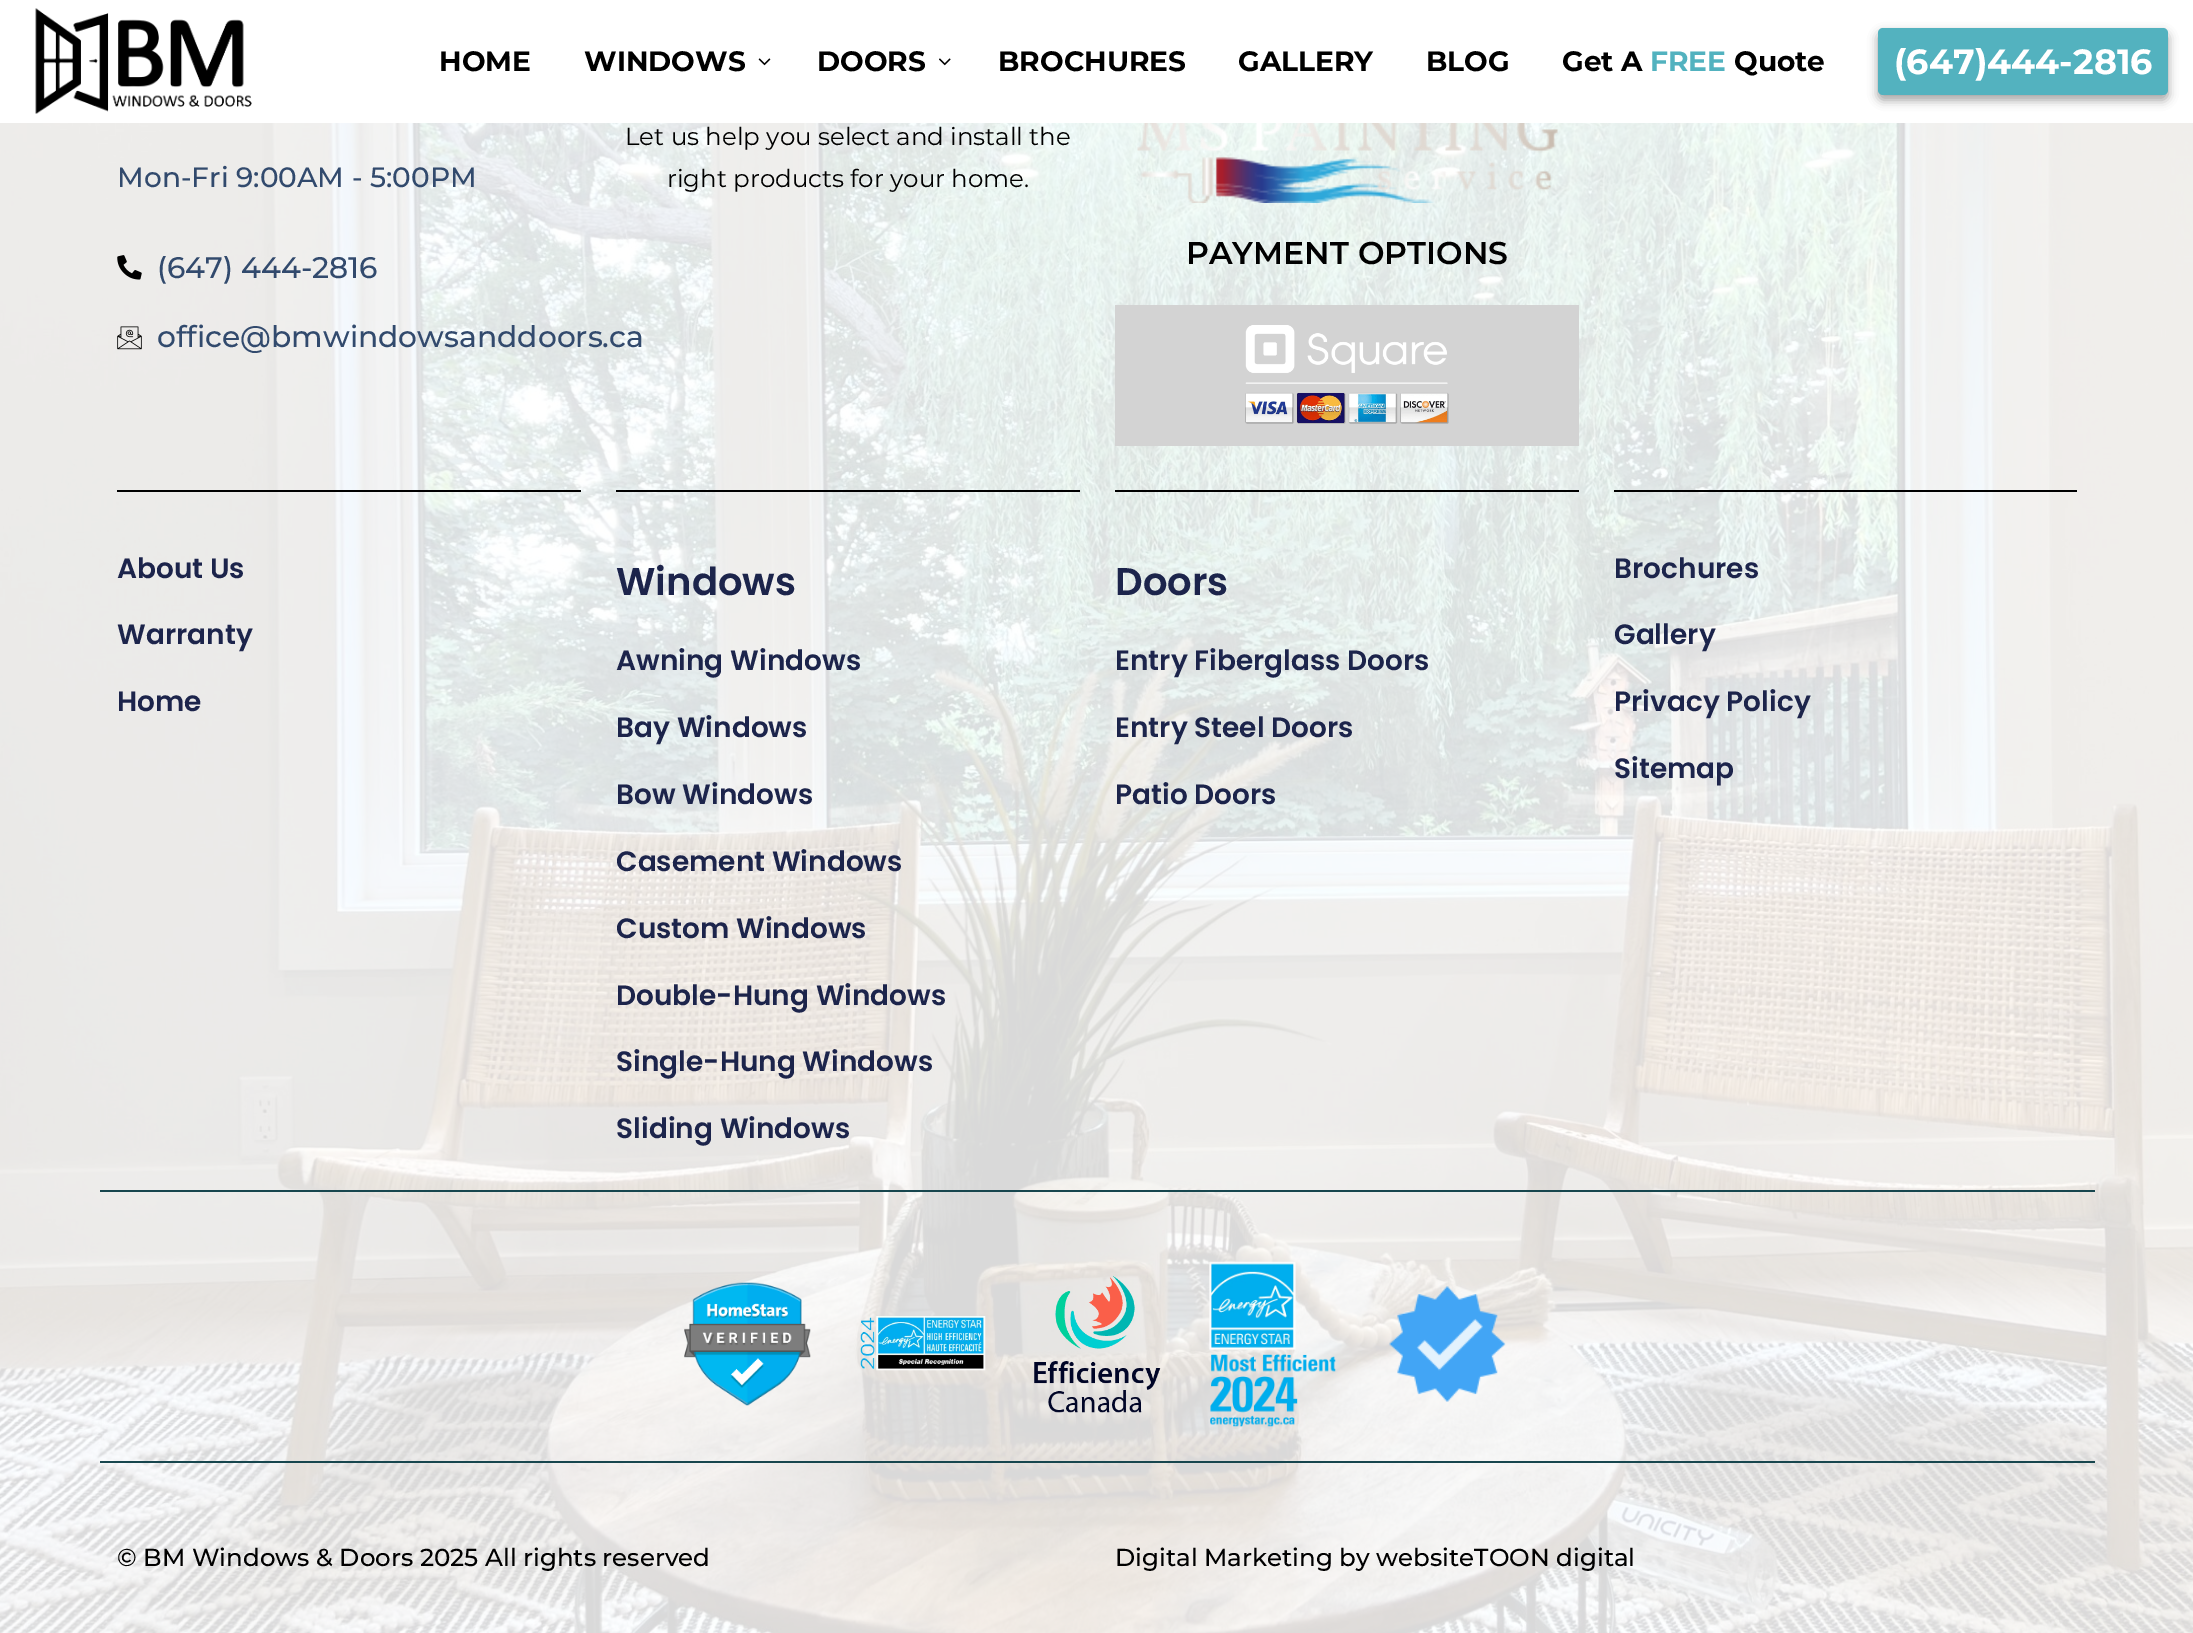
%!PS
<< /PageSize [2193 1633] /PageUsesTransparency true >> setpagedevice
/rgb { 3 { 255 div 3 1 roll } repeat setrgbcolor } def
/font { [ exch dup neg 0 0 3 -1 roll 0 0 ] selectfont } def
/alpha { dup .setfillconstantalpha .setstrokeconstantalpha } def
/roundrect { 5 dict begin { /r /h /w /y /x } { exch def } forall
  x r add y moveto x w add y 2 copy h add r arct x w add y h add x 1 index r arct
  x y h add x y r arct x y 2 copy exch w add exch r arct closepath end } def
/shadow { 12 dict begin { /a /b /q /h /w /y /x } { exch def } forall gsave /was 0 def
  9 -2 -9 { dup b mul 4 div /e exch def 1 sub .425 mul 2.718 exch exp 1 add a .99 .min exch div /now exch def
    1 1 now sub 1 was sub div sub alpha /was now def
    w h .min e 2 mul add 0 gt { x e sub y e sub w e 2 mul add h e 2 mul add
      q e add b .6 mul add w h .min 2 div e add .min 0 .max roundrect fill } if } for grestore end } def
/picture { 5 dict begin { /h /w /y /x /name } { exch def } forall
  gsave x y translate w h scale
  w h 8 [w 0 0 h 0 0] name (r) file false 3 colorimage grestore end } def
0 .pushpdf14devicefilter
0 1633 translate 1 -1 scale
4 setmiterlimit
255 255 255 rgb
0 0 2193 1633 rectfill
(img/1.rgb) 35 8 217 106 picture
(img/2.rgb) 758 58 13 8 picture
(img/3.rgb) 939 58 12 8 picture
0 0 0 rgb
1878 33 290 67 5 5 0.23 shadow
1878 33 290 67 5 5 0.16 shadow
83 178 191 rgb
1878 28 290 67 5 roundrect fill
(img/4.rgb) 0 123 2193 1510 picture
(img/5.rgb) 117 255 25 25 picture
(img/6.rgb) 117 326 25 24 picture
(img/7.rgb) 1137 123 421 80 picture
211 211 211 rgb
1115 305 464 141 rectfill
(img/8.rgb) 1245 325 204 99 picture
[
  [117 490 464 2 0 0 0]
  [616 490 464 2 0 0 0]
  [1115 490 464 2 0 0 0]
  [1614 490 463 2 0 0 0]
  [100 1190 1995 2 23 70 78]
] { aload pop rgb rectfill } forall
(img/9.rgb) 684 1282 127 124 picture
(img/10.rgb) 860 1316 126 55 picture
(img/11.rgb) 1034 1276 127 137 picture
(img/12.rgb) 1209 1261 127 166 picture
(img/13.rgb) 1389 1286 117 116 picture
100 1461 1995 2 rectfill
/Montserrat-Bold 28 font
0 0 0 rgb
[
  [(HOME) 439 71]
  [(WINDOWS) 584 71]
  [(DOORS) 817 71]
  [(BROCHURES) 998 71]
  [(GALLERY) 1238 71]
  [(BLOG) 1426 71]
  [(Get A) 1562 71]
] { aload pop moveto show } forall
82 178 191 rgb
1650 71 moveto (FREE) show
0 0 0 rgb
1734 71 moveto (Quote) show
/Montserrat-Bold 35 font
255 255 255 rgb
1894 74 moveto (\(647\)444-2816) show
/Montserrat-Medium 28 font
50 74 109 rgb
117 187 moveto (Mon-Fri 9:00AM - 5:00PM) show
/Montserrat-Medium 29.75 font
157 278 moveto (\(647\) 444-2816) show
157 347 moveto (office@bmwindowsanddoors.ca) show
/Montserrat-Regular 24.5 font
0 0 0 rgb
625 145 moveto (Let us help you select and install the) show
667 187 moveto (right products for your home.) show
/Montserrat-SemiBold 31.5 font
1186 264 moveto (PAYMENT OPTIONS) show
/Poppins-SemiBold 28 font
28 36 75 rgb
[
  [(About Us) 117 578]
  [(Warranty) 117 644]
  [(Home) 117 711]
] { aload pop moveto show } forall
/Poppins-SemiBold 38.5 font
616 595 moveto (Windows) show
/Poppins-SemiBold 28 font
[
  [(Awning Windows) 616 670]
  [(Bay Windows) 616 737]
  [(Bow Windows) 616 804]
  [(Casement Windows) 616 871]
  [(Custom Windows) 616 938]
  [(Double-Hung Windows) 616 1005]
  [(Single-Hung Windows) 616 1071]
  [(Sliding Windows) 616 1138]
] { aload pop moveto show } forall
/Poppins-SemiBold 38.5 font
1115 595 moveto (Doors) show
/Poppins-SemiBold 28 font
[
  [(Entry Fiberglass Doors) 1115 670]
  [(Entry Steel Doors) 1115 737]
  [(Patio Doors) 1115 804]
  [(Brochures) 1614 578]
  [(Gallery) 1614 644]
  [(Privacy Policy) 1614 711]
  [(Sitemap) 1614 778]
] { aload pop moveto show } forall
/Montserrat-Medium 24.5 font
0 0 0 rgb
117 1566 moveto (© BM Windows & Doors 2025 All rights reserved) show
1115 1566 moveto (Digital Marketing by websiteTOON digital) show
.poppdf14devicefilter showpage
